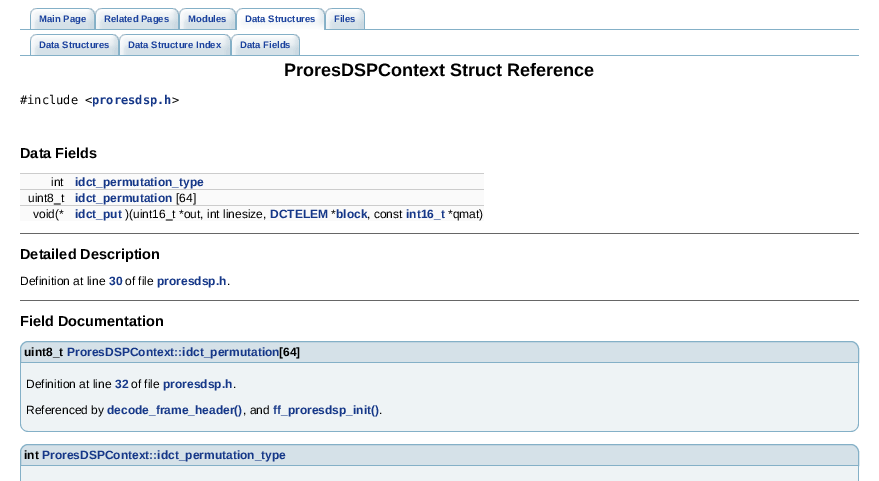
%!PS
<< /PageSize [879 481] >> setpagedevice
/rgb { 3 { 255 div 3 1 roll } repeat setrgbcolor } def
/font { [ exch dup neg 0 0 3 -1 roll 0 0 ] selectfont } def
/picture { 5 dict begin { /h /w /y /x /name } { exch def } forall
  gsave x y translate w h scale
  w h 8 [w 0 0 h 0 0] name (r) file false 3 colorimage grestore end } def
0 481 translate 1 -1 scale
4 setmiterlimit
255 255 255 rgb
0 0 879 481 rectfill
132 176 199 rgb
20 29 839 1 rectfill
(img/1.rgb) 39 8 56 21 picture
(img/2.rgb) 30 8 9 21 picture
(img/3.rgb) 104 8 75 21 picture
(img/2.rgb) 95 8 9 21 picture
(img/4.rgb) 188 8 48 21 picture
(img/2.rgb) 179 8 9 21 picture
(img/5.rgb) 243 8 82 22 picture
(img/6.rgb) 236 8 7 22 picture
(img/7.rgb) 334 8 31 21 picture
(img/2.rgb) 325 8 9 21 picture
20 55 839 1 rectfill
(img/8.rgb) 39 34 80 21 picture
(img/2.rgb) 30 34 9 21 picture
(img/9.rgb) 128 34 103 21 picture
(img/2.rgb) 119 34 9 21 picture
(img/10.rgb) 240 34 60 21 picture
(img/2.rgb) 231 34 9 21 picture
[
  [20 174 464 15 250 250 250]
  [20 173 464 1 204 204 204]
  [20 190 464 15 250 250 250]
  [20 189 464 1 204 204 204]
  [20 206 464 15 250 250 250]
  [20 205 464 1 204 204 204]
  [20 233 839 1 102 102 102]
  [20 300 839 1 102 102 102]
] { aload pop rgb rectfill } forall
213 225 232 rgb
28 341.5 moveto 851 341.5 lineto 855 341.5 858.5 345 858.5 349 curveto 858.5 362.5 lineto 20.5 362.5 lineto 20.5 349 lineto 20.5 345 24 341.5 28 341.5 curveto closepath gsave fill grestore
132 176 199 rgb
stroke
238 243 245 rgb
21 363 moveto 858 363 lineto 858 424 lineto 858 428 855 431 851 431 curveto 28 431 lineto 24 431 21 428 21 424 curveto closepath fill
132 176 199 rgb
20 363 moveto 859 363 lineto 859 424 lineto 859 428 855 432 851 432 curveto 28 432 lineto 24 432 20 428 20 424 curveto closepath 21 363 moveto 858 363 lineto 858 424 lineto 858 428 855 431 851 431 curveto 28 431 lineto 24 431 21 428 21 424 curveto closepath eofill
213 225 232 rgb
28 444.5 moveto 851 444.5 lineto 855 444.5 858.5 448 858.5 452 curveto 858.5 465.5 lineto 20.5 465.5 lineto 20.5 452 lineto 20.5 448 24 444.5 28 444.5 curveto closepath gsave fill grestore
132 176 199 rgb
stroke
238 243 245 rgb
21 466 837 15 rectfill
132 176 199 rgb
20 466 moveto 859 466 lineto 859 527 lineto 859 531 855 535 851 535 curveto 28 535 lineto 24 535 20 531 20 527 curveto closepath 21 466 moveto 858 466 lineto 858 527 lineto 858 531 855 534 851 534 curveto 28 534 lineto 24 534 21 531 21 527 curveto closepath eofill
/LiberationSans-Bold 9.5 font
26 65 157 rgb
[
  [(Main Page) 39 22]
  [(Related Pages) 104 22]
  [(Modules) 188 22]
  [(Data Structures) 245 22]
  [(Files) 334 22]
  [(Data Structures) 39 48]
  [(Data Structure Index) 128 48]
  [(Data Fields) 240 48]
] { aload pop moveto show } forall
/LiberationSans-Bold 18 font
0 0 0 rgb
284 76 moveto (ProresDSPContext Struct Reference) show
/DejaVuSansMono-Regular 12 font
20 104 moveto (#include <) show
/DejaVuSansMono-Bold 12 font
21 55 136 rgb
92 104 moveto (proresdsp.h) show
/DejaVuSansMono-Regular 12 font
0 0 0 rgb
172 104 moveto (>) show
/LiberationSans-Bold 14.5 font
20 158 moveto (Data Fields) show
/LiberationSans-Regular 12 font
51 186 moveto (int) show
/LiberationSans-Bold 12 font
21 55 136 rgb
75 186 moveto (idct_permutation_type) show
/LiberationSans-Regular 12 font
0 0 0 rgb
28 202 moveto (uint8_t) show
/LiberationSans-Bold 12 font
21 55 136 rgb
75 202 moveto (idct_permutation) show
/LiberationSans-Regular 12 font
0 0 0 rgb
176 202 moveto ([64]) show
33 218 moveto (void\(*) show
/LiberationSans-Bold 12 font
21 55 136 rgb
75 218 moveto (idct_put) show
/LiberationSans-Regular 12 font
0 0 0 rgb
125 218 moveto (\)\(uint16_t *out, int linesize,) show
/LiberationSans-Bold 12 font
21 55 136 rgb
270 218 moveto (DCTELEM) show
/LiberationSans-Regular 12 font
0 0 0 rgb
331 218 moveto (*) show
/LiberationSans-Bold 12 font
21 55 136 rgb
336 218 moveto (block) show
/LiberationSans-Regular 12 font
0 0 0 rgb
367 218 moveto (, const) show
/LiberationSans-Bold 12 font
21 55 136 rgb
406 218 moveto (int16_t) show
/LiberationSans-Regular 12 font
0 0 0 rgb
448 218 moveto (*qmat\)) show
/LiberationSans-Bold 14.5 font
20 259 moveto (Detailed Description) show
/LiberationSans-Regular 12 font
20 285 moveto (Definition at line) show
/LiberationSans-Bold 12 font
21 55 136 rgb
109 285 moveto (30) show
/LiberationSans-Regular 12 font
0 0 0 rgb
125 285 moveto (of file) show
/LiberationSans-Bold 12 font
21 55 136 rgb
157 285 moveto (proresdsp.h) show
/LiberationSans-Regular 12 font
0 0 0 rgb
227 285 moveto (.) show
/LiberationSans-Bold 14.5 font
20 326 moveto (Field Documentation) show
/LiberationSans-Bold 12 font
24 356 moveto (uint8_t) show
21 55 136 rgb
67 356 moveto (ProresDSPContext::idct_permutation) show
0 0 0 rgb
279 356 moveto ([64]) show
/LiberationSans-Regular 12 font
26 388 moveto (Definition at line) show
/LiberationSans-Bold 12 font
21 55 136 rgb
115 388 moveto (32) show
/LiberationSans-Regular 12 font
0 0 0 rgb
131 388 moveto (of file) show
/LiberationSans-Bold 12 font
21 55 136 rgb
163 388 moveto (proresdsp.h) show
/LiberationSans-Regular 12 font
0 0 0 rgb
233 388 moveto (.) show
26 414 moveto (Referenced by) show
/LiberationSans-Bold 12 font
21 55 136 rgb
107 414 moveto (decode_frame_header\(\)) show
/LiberationSans-Regular 12 font
0 0 0 rgb
243 414 moveto (, and) show
/LiberationSans-Bold 12 font
21 55 136 rgb
273 414 moveto (ff_proresdsp_init\(\)) show
/LiberationSans-Regular 12 font
0 0 0 rgb
379 414 moveto (.) show
/LiberationSans-Bold 12 font
24 459 moveto (int) show
21 55 136 rgb
42 459 moveto (ProresDSPContext::idct_permutation_type) show
showpage
